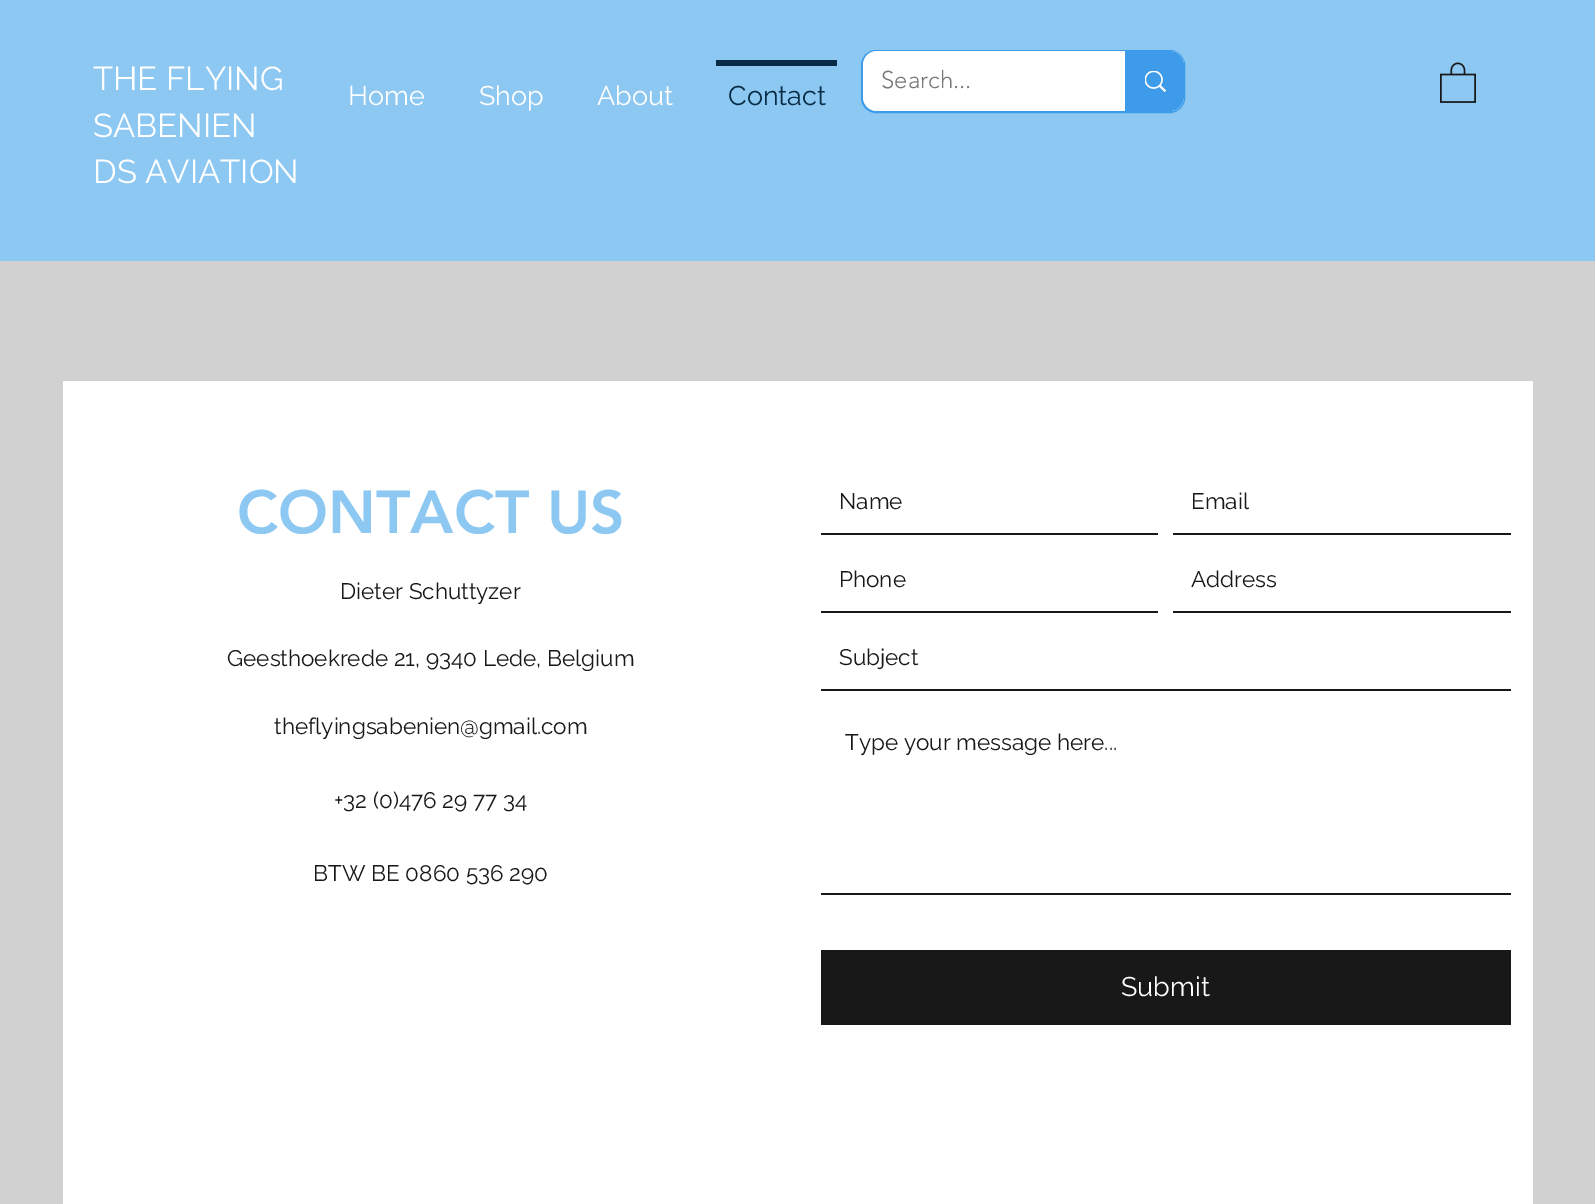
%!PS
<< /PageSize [1595 1204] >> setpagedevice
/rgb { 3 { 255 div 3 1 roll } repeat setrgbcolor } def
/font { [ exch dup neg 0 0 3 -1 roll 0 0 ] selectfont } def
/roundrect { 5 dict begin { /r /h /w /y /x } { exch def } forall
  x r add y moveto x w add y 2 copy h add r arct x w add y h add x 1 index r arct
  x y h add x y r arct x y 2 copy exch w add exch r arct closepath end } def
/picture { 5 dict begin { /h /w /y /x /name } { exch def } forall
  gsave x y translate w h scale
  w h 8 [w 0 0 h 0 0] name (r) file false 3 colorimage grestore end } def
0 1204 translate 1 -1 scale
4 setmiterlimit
209 209 209 rgb
0 0 1595 1204 rectfill
141 200 242 rgb
0 0 1595 261 rectfill
61 155 233 rgb
2 setlinewidth
862 51 322 61 14 roundrect stroke
255 255 255 rgb
863 51 321 60 14 roundrect fill
61 155 233 rgb
1125 51 moveto 1170 51 lineto 1177.5 51 1184 57.5 1184 65 curveto 1184 97 lineto 1184 104.5 1177.5 111 1170 111 curveto 1125 111 lineto closepath fill
(img/1.rgb) 1145 71 21 21 picture
(img/2.rgb) 1440 62 36 41 picture
[
  [716 60 121 6 8 44 69]
  [63 381 1470 823 255 255 255]
  [821 533 337 2 24 24 24]
  [1173 533 338 2 24 24 24]
  [821 611 337 2 24 24 24]
  [1173 611 338 2 24 24 24]
  [821 689 690 2 24 24 24]
  [821 893 690 2 24 24 24]
  [821 950 690 75 24 24 24]
] { aload pop rgb rectfill } forall
/Raleway-Regular 33 font
255 255 255 rgb
[
  [(THE FLYING) 93 90]
  [(SABENIEN) 93 137]
  [(DS AVIATION) 93 183]
] { aload pop moveto show } forall
/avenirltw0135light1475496-Light 24 font
120 120 120 rgb
881 88 moveto (Search...) show
/Raleway-Regular 27 font
255 255 255 rgb
[
  [(Home) 348 105]
  [(Shop) 479 105]
  [(About) 597 105]
] { aload pop moveto show } forall
8 44 69 rgb
728 105 moveto (Contact) show
/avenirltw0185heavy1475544-Black 60 font
141 200 242 rgb
237 533 moveto (CONTACT US) show
/Raleway-Regular 22.5 font
24 24 24 rgb
[
  [(Dieter Schuttyzer) 340 599]
  [(Geesthoekrede 21, 9340 Lede, Belgium) 227 666]
  [(theflyingsabenien@gmail.com) 274 734]
  [(+32 \(0\)476 29 77 34) 334 808]
  [(BTW BE 0860 536 290) 313 881]
  [(Name) 839 509]
  [(Email) 1191 509]
  [(Phone) 839 587]
  [(Address) 1191 587]
  [(Subject) 839 665]
  [(Type your message here...) 845 750]
] { aload pop moveto show } forall
/Raleway-Regular 27 font
255 255 255 rgb
1121 996 moveto (Submit) show
showpage
